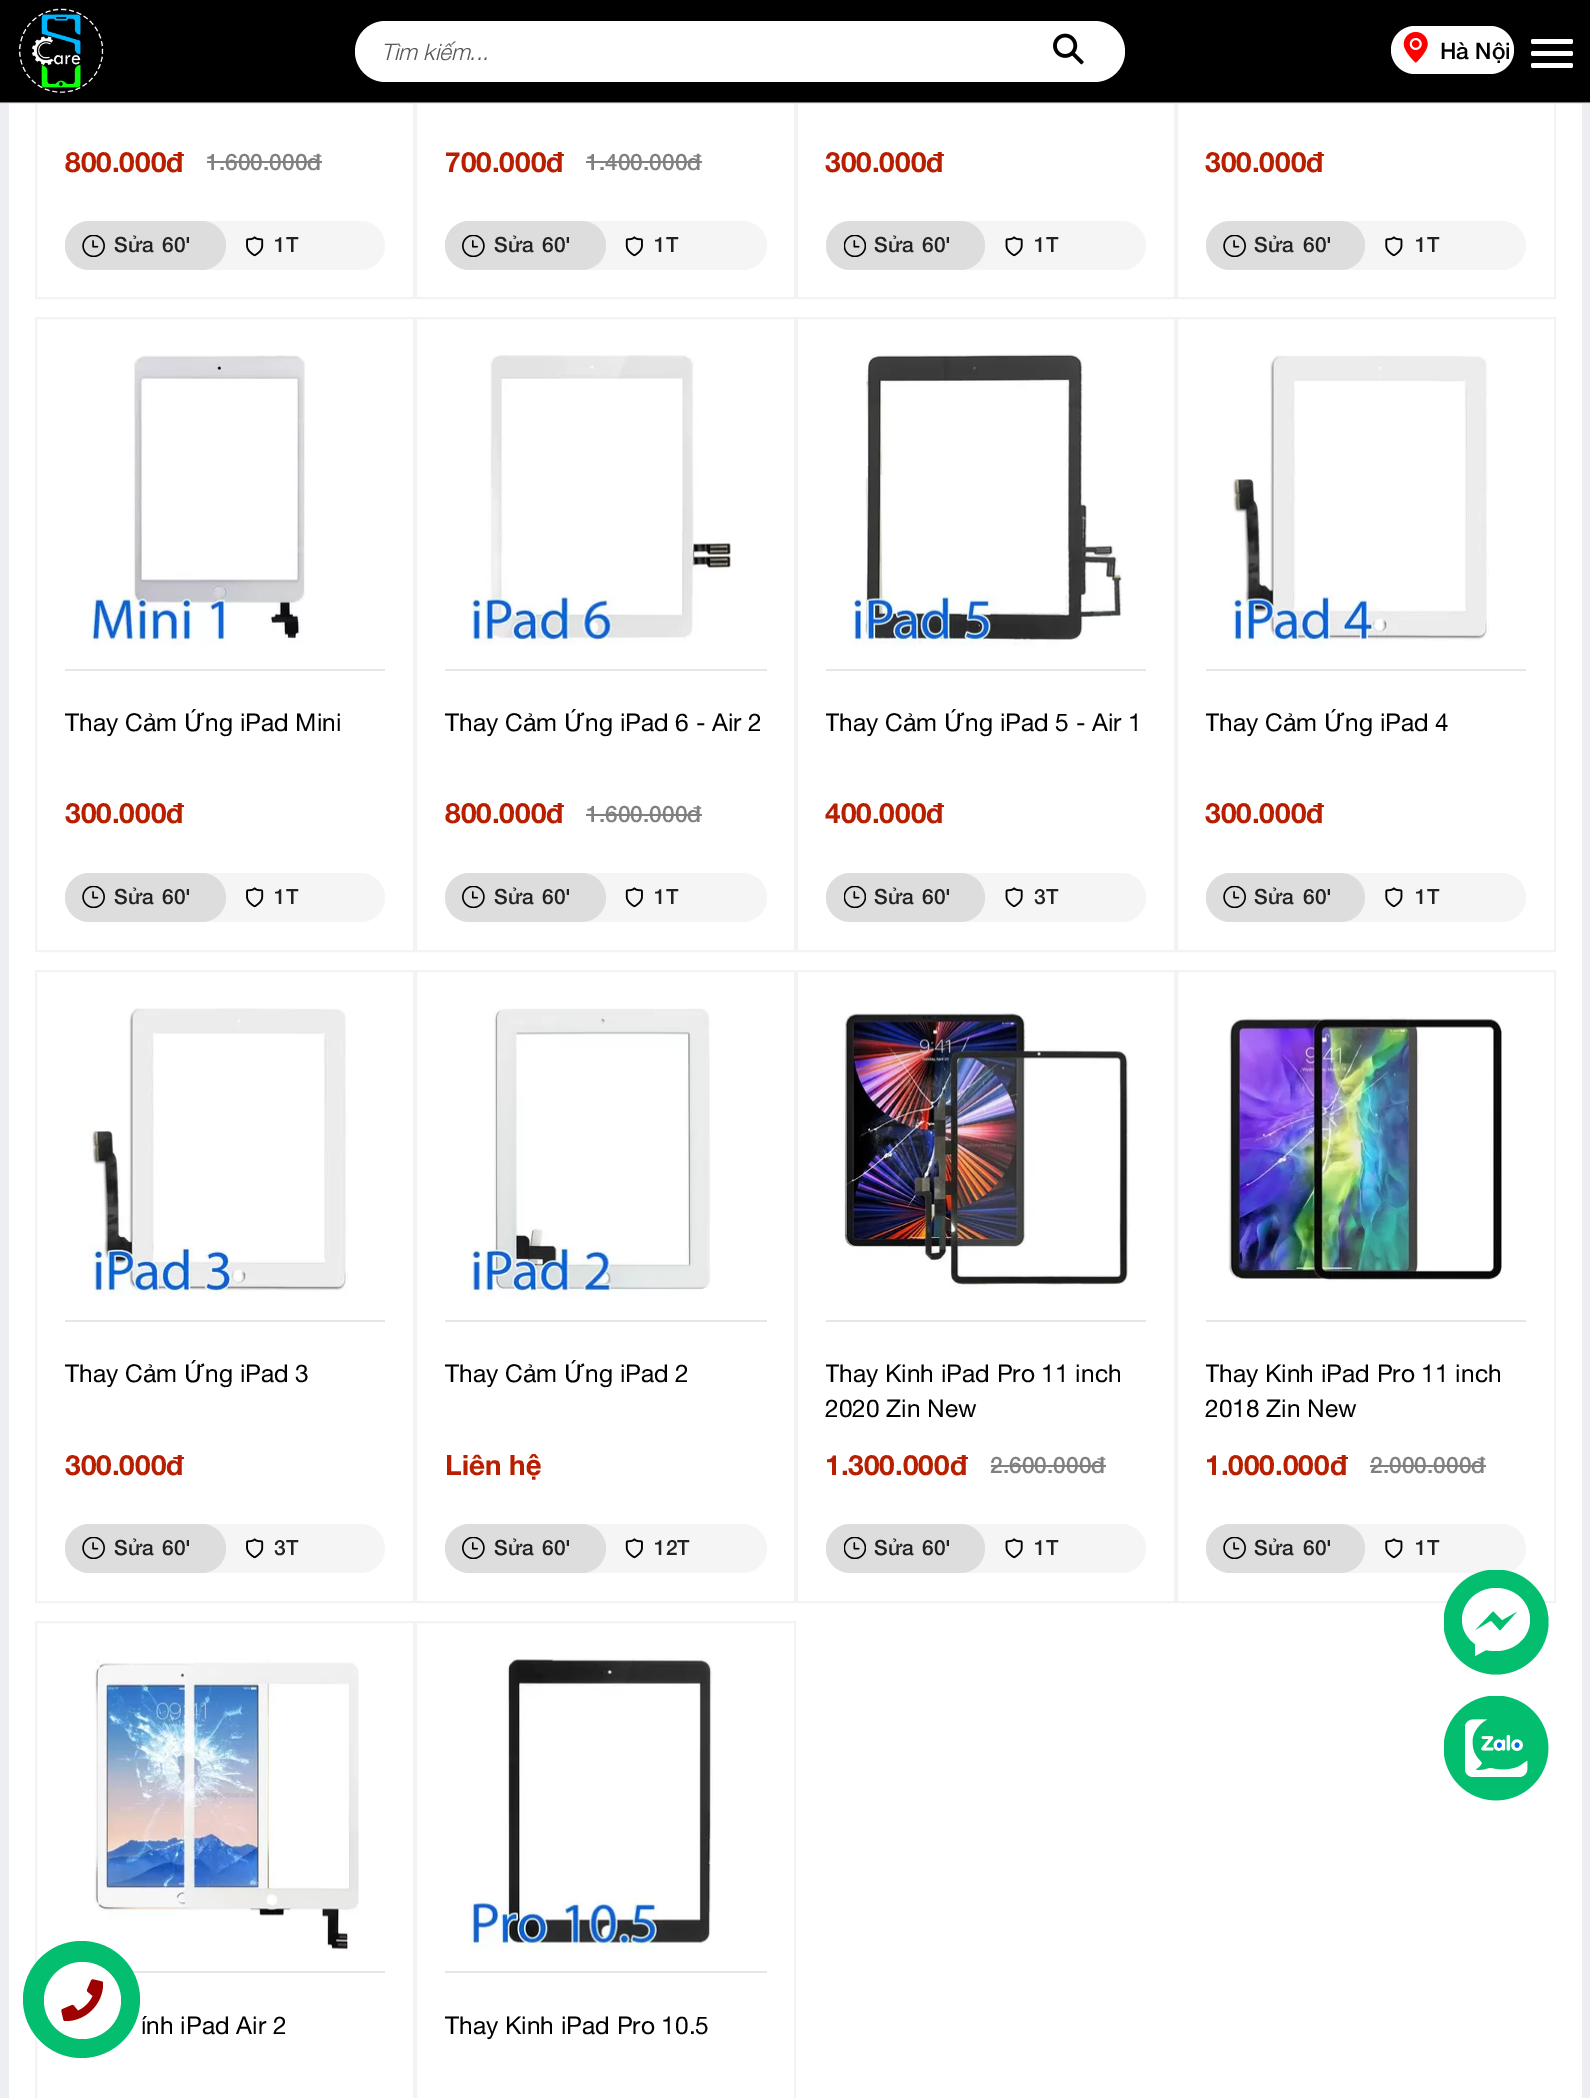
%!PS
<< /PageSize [1590 2098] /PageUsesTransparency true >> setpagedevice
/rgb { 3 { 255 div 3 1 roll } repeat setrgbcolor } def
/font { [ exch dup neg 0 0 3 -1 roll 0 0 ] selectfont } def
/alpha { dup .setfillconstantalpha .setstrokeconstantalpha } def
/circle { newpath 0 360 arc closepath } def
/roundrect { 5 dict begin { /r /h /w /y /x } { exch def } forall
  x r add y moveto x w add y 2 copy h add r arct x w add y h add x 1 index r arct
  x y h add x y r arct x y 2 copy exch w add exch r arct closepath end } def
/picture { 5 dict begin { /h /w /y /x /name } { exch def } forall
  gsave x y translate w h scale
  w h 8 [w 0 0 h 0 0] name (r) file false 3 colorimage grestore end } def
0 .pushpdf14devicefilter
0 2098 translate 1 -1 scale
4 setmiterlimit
237 238 241 rgb
0 0 1590 2098 rectfill
255 255 255 rgb
9 103 1573 1995 rectfill
243 243 243 rgb
2 setlinewidth
36 -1 378 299 rectstroke
416 -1 379 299 rectstroke
797 -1 378 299 rectstroke
1177 -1 378 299 rectstroke
0 0 0 rgb
0 0 1590 103 rectfill
0.56 alpha
221 221 221 rgb
0 102 1590 2 rectfill
1 alpha
(img/1.rgb) 18 8 86 85 picture
255 255 255 rgb
355 21 770 61 30.5 roundrect fill
(img/2.rgb) 1053 33 31 32 picture
1391 26 123 48 24 roundrect fill
(img/3.rgb) 1403 31 25 32 picture
1531 39 42 5 2 roundrect fill
1531 51 42 5 2 roundrect fill
1531 63 42 5 2 roundrect fill
128 128 128 rgb
207 161 115 2 rectfill
245 245 245 rgb
65 221 320 49 24.5 roundrect fill
221 221 221 rgb
65 221 161 49 24.5 roundrect fill
(img/4.rgb) 82 235 23 22 picture
(img/5.rgb) 246 236 18 21 picture
128 128 128 rgb
586 161 116 2 rectfill
245 245 245 rgb
445 221 322 49 24.5 roundrect fill
221 221 221 rgb
445 221 161 49 24.5 roundrect fill
(img/6.rgb) 462 235 23 22 picture
(img/7.rgb) 625 236 18 21 picture
245 245 245 rgb
826 221 320 49 24.5 roundrect fill
221 221 221 rgb
826 221 159 49 24.5 roundrect fill
(img/8.rgb) 844 235 22 22 picture
(img/9.rgb) 1005 236 18 21 picture
245 245 245 rgb
1206 221 320 49 24.5 roundrect fill
221 221 221 rgb
1206 221 159 49 24.5 roundrect fill
(img/4.rgb) 1223 235 23 22 picture
(img/10.rgb) 1385 236 18 21 picture
243 243 243 rgb
36 318 378 633 rectstroke
230 230 230 rgb
65 669 320 2 rectfill
(img/11.rgb) 89 355 216 291 picture
245 245 245 rgb
65 873 320 49 24.5 roundrect fill
221 221 221 rgb
65 873 161 49 24.5 roundrect fill
(img/4.rgb) 82 886 23 22 picture
(img/5.rgb) 246 887 18 21 picture
243 243 243 rgb
416 318 379 633 rectstroke
230 230 230 rgb
445 669 322 2 rectfill
(img/12.rgb) 471 355 260 290 picture
128 128 128 rgb
586 814 116 2 rectfill
245 245 245 rgb
445 873 322 49 24.5 roundrect fill
221 221 221 rgb
445 873 161 49 24.5 roundrect fill
(img/6.rgb) 462 886 23 22 picture
(img/7.rgb) 625 887 18 21 picture
243 243 243 rgb
797 318 378 633 rectstroke
230 230 230 rgb
826 669 320 2 rectfill
(img/13.rgb) 850 354 273 293 picture
245 245 245 rgb
826 873 320 49 24.5 roundrect fill
221 221 221 rgb
826 873 159 49 24.5 roundrect fill
(img/8.rgb) 844 886 22 22 picture
(img/9.rgb) 1005 887 18 21 picture
243 243 243 rgb
1177 318 378 633 rectstroke
230 230 230 rgb
1206 669 320 2 rectfill
(img/14.rgb) 1230 355 259 292 picture
245 245 245 rgb
1206 873 320 49 24.5 roundrect fill
221 221 221 rgb
1206 873 159 49 24.5 roundrect fill
(img/4.rgb) 1223 886 23 22 picture
(img/10.rgb) 1385 887 18 21 picture
243 243 243 rgb
36 971 378 631 rectstroke
230 230 230 rgb
65 1320 320 2 rectfill
(img/15.rgb) 88 1008 260 288 picture
245 245 245 rgb
65 1524 320 49 24.5 roundrect fill
221 221 221 rgb
65 1524 161 49 24.5 roundrect fill
(img/4.rgb) 82 1537 23 22 picture
(img/5.rgb) 246 1538 18 21 picture
243 243 243 rgb
416 971 379 631 rectstroke
230 230 230 rgb
445 1320 322 2 rectfill
(img/16.rgb) 469 1008 242 290 picture
245 245 245 rgb
445 1524 322 49 24.5 roundrect fill
221 221 221 rgb
445 1524 161 49 24.5 roundrect fill
(img/6.rgb) 462 1537 23 22 picture
(img/7.rgb) 625 1538 18 21 picture
243 243 243 rgb
797 971 378 631 rectstroke
230 230 230 rgb
826 1320 320 2 rectfill
(img/17.rgb) 842 1011 288 276 picture
128 128 128 rgb
991 1465 115 2 rectfill
245 245 245 rgb
826 1524 320 49 24.5 roundrect fill
221 221 221 rgb
826 1524 159 49 24.5 roundrect fill
(img/8.rgb) 844 1537 22 22 picture
(img/9.rgb) 1005 1538 18 21 picture
243 243 243 rgb
1177 971 378 631 rectstroke
230 230 230 rgb
1206 1320 320 2 rectfill
(img/18.rgb) 1228 1015 274 267 picture
128 128 128 rgb
1370 1465 116 2 rectfill
245 245 245 rgb
1206 1524 320 49 24.5 roundrect fill
221 221 221 rgb
1206 1524 159 49 24.5 roundrect fill
(img/4.rgb) 1223 1537 23 22 picture
(img/10.rgb) 1385 1538 18 21 picture
243 243 243 rgb
36 1622 378 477 rectstroke
230 230 230 rgb
132 1971 253 2 rectfill
(img/19.rgb) 93 1659 266 292 picture
243 243 243 rgb
416 1622 379 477 rectstroke
230 230 230 rgb
445 1971 322 2 rectfill
(img/20.rgb) 469 1658 244 293 picture
gsave
1444 1570 105 105 rectclip
2 190 110 rgb
1496 1622 52.5 circle fill
grestore
255 255 255 rgb
1496 1588 moveto 1465 1588 1449 1625 1475 1644 curveto 1475 1656 lineto 1486 1650 lineto 1490 1651 1493 1651 1496 1651 curveto 1515 1651 1530 1637 1530 1620 curveto 1530 1602 1515 1588 1496 1588 curveto closepath 1500 1631 moveto 1491 1621 lineto 1474 1631 lineto 1493 1611 lineto 1502 1620 lineto 1518 1611 lineto closepath eofill
(img/21.rgb) 1444 1696 105 105 picture
2 190 110 rgb
81.5 1999.5 58.5 circle fill
255 255 255 rgb
82.5 2000.5 38.5 circle fill
(img/22.rgb) 61 1979 42 42 picture
/HelveticaNeue-LightItalic 22.75 font
87 87 87 rgb
381 60 moveto (Tìm kiếm...) show
/HelveticaNeue-Medium 22.75 font
0 0 0 rgb
1440 59 moveto (Hà Nội) show
/HelveticaNeue-Bold 28 font
184 30 0 rgb
65 172 moveto (800.000đ) show
/HelveticaNeue-Medium 22.75 font
128 128 128 rgb
206 170 moveto (1.600.000đ) show
/HelveticaNeue-Medium 21 font
34 34 34 rgb
[
  [(Sửa) 114 252]
  [(60') 162 252]
  [(1T) 274 252]
] { aload pop moveto show } forall
/HelveticaNeue-Bold 28 font
184 30 0 rgb
445 172 moveto (700.000đ) show
/HelveticaNeue-Medium 22.75 font
128 128 128 rgb
586 170 moveto (1.400.000đ) show
/HelveticaNeue-Medium 21 font
34 34 34 rgb
[
  [(Sửa) 494 252]
  [(60') 542 252]
  [(1T) 654 252]
] { aload pop moveto show } forall
/HelveticaNeue-Bold 28 font
184 30 0 rgb
825 172 moveto (300.000đ) show
/HelveticaNeue-Medium 21 font
34 34 34 rgb
[
  [(Sửa) 874 252]
  [(60') 922 252]
  [(1T) 1034 252]
] { aload pop moveto show } forall
/HelveticaNeue-Bold 28 font
184 30 0 rgb
1205 172 moveto (300.000đ) show
/HelveticaNeue-Medium 21 font
34 34 34 rgb
[
  [(Sửa) 1254 252]
  [(60') 1303 252]
  [(1T) 1415 252]
] { aload pop moveto show } forall
gsave
65 705 320 70 rectclip
/HelveticaNeue-Regular 24.5 font
0 0 0 rgb
65 731 moveto (Thay Cảm Ứng iPad Mini) show
grestore
/HelveticaNeue-Bold 28 font
184 30 0 rgb
65 823 moveto (300.000đ) show
/HelveticaNeue-Medium 21 font
34 34 34 rgb
[
  [(Sửa) 114 904]
  [(60') 162 904]
  [(1T) 274 904]
] { aload pop moveto show } forall
/HelveticaNeue-Regular 24.5 font
0 0 0 rgb
445 731 moveto (Thay Cảm Ứng iPad 6 - Air 2) show
/HelveticaNeue-Bold 28 font
184 30 0 rgb
445 823 moveto (800.000đ) show
/HelveticaNeue-Medium 22.75 font
128 128 128 rgb
586 822 moveto (1.600.000đ) show
/HelveticaNeue-Medium 21 font
34 34 34 rgb
[
  [(Sửa) 494 904]
  [(60') 542 904]
  [(1T) 654 904]
] { aload pop moveto show } forall
gsave
826 705 320 70 rectclip
/HelveticaNeue-Regular 24.5 font
0 0 0 rgb
825 731 moveto (Thay Cảm Ứng iPad 5 - Air 1) show
grestore
/HelveticaNeue-Bold 28 font
184 30 0 rgb
825 823 moveto (400.000đ) show
/HelveticaNeue-Medium 21 font
34 34 34 rgb
[
  [(Sửa) 874 904]
  [(60') 922 904]
  [(3T) 1034 904]
] { aload pop moveto show } forall
gsave
1206 705 320 70 rectclip
/HelveticaNeue-Regular 24.5 font
0 0 0 rgb
1205 731 moveto (Thay Cảm Ứng iPad 4) show
grestore
/HelveticaNeue-Bold 28 font
184 30 0 rgb
1205 823 moveto (300.000đ) show
/HelveticaNeue-Medium 21 font
34 34 34 rgb
[
  [(Sửa) 1254 904]
  [(60') 1303 904]
  [(1T) 1415 904]
] { aload pop moveto show } forall
gsave
65 1356 320 70 rectclip
/HelveticaNeue-Regular 24.5 font
0 0 0 rgb
65 1382 moveto (Thay Cảm Ứng iPad 3) show
grestore
/HelveticaNeue-Bold 28 font
184 30 0 rgb
65 1475 moveto (300.000đ) show
/HelveticaNeue-Medium 21 font
34 34 34 rgb
[
  [(Sửa) 114 1555]
  [(60') 162 1555]
  [(3T) 274 1555]
] { aload pop moveto show } forall
/HelveticaNeue-Regular 24.5 font
0 0 0 rgb
445 1382 moveto (Thay Cảm Ứng iPad 2) show
/HelveticaNeue-Bold 28 font
184 30 0 rgb
445 1475 moveto (Liên hệ) show
/HelveticaNeue-Medium 21 font
34 34 34 rgb
[
  [(Sửa) 494 1555]
  [(60') 542 1555]
  [(12T) 654 1555]
] { aload pop moveto show } forall
gsave
826 1356 320 70 rectclip
/HelveticaNeue-Regular 24.5 font
0 0 0 rgb
825 1382 moveto (Thay Kinh iPad Pro 11 inch) show
grestore
/HelveticaNeue-Regular 24.5 font
0 0 0 rgb
825 1417 moveto (2020 Zin New) show
/HelveticaNeue-Bold 28 font
184 30 0 rgb
825 1475 moveto (1.300.000đ) show
/HelveticaNeue-Medium 22.75 font
128 128 128 rgb
990 1473 moveto (2.600.000đ) show
/HelveticaNeue-Medium 21 font
34 34 34 rgb
[
  [(Sửa) 874 1555]
  [(60') 922 1555]
  [(1T) 1034 1555]
] { aload pop moveto show } forall
gsave
1206 1356 320 70 rectclip
/HelveticaNeue-Regular 24.5 font
0 0 0 rgb
1205 1382 moveto (Thay Kinh iPad Pro 11 inch) show
grestore
/HelveticaNeue-Regular 24.5 font
0 0 0 rgb
1205 1417 moveto (2018 Zin New) show
/HelveticaNeue-Bold 28 font
184 30 0 rgb
1205 1475 moveto (1.000.000đ) show
/HelveticaNeue-Medium 22.75 font
128 128 128 rgb
1370 1473 moveto (2.000.000đ) show
/HelveticaNeue-Medium 21 font
34 34 34 rgb
[
  [(Sửa) 1254 1555]
  [(60') 1303 1555]
  [(1T) 1415 1555]
] { aload pop moveto show } forall
/HelveticaNeue-Regular 24.5 font
0 0 0 rgb
141 2034 moveto (ính iPad Air 2) show
445 2034 moveto (Thay Kinh iPad Pro 10.5) show
.poppdf14devicefilter showpage
